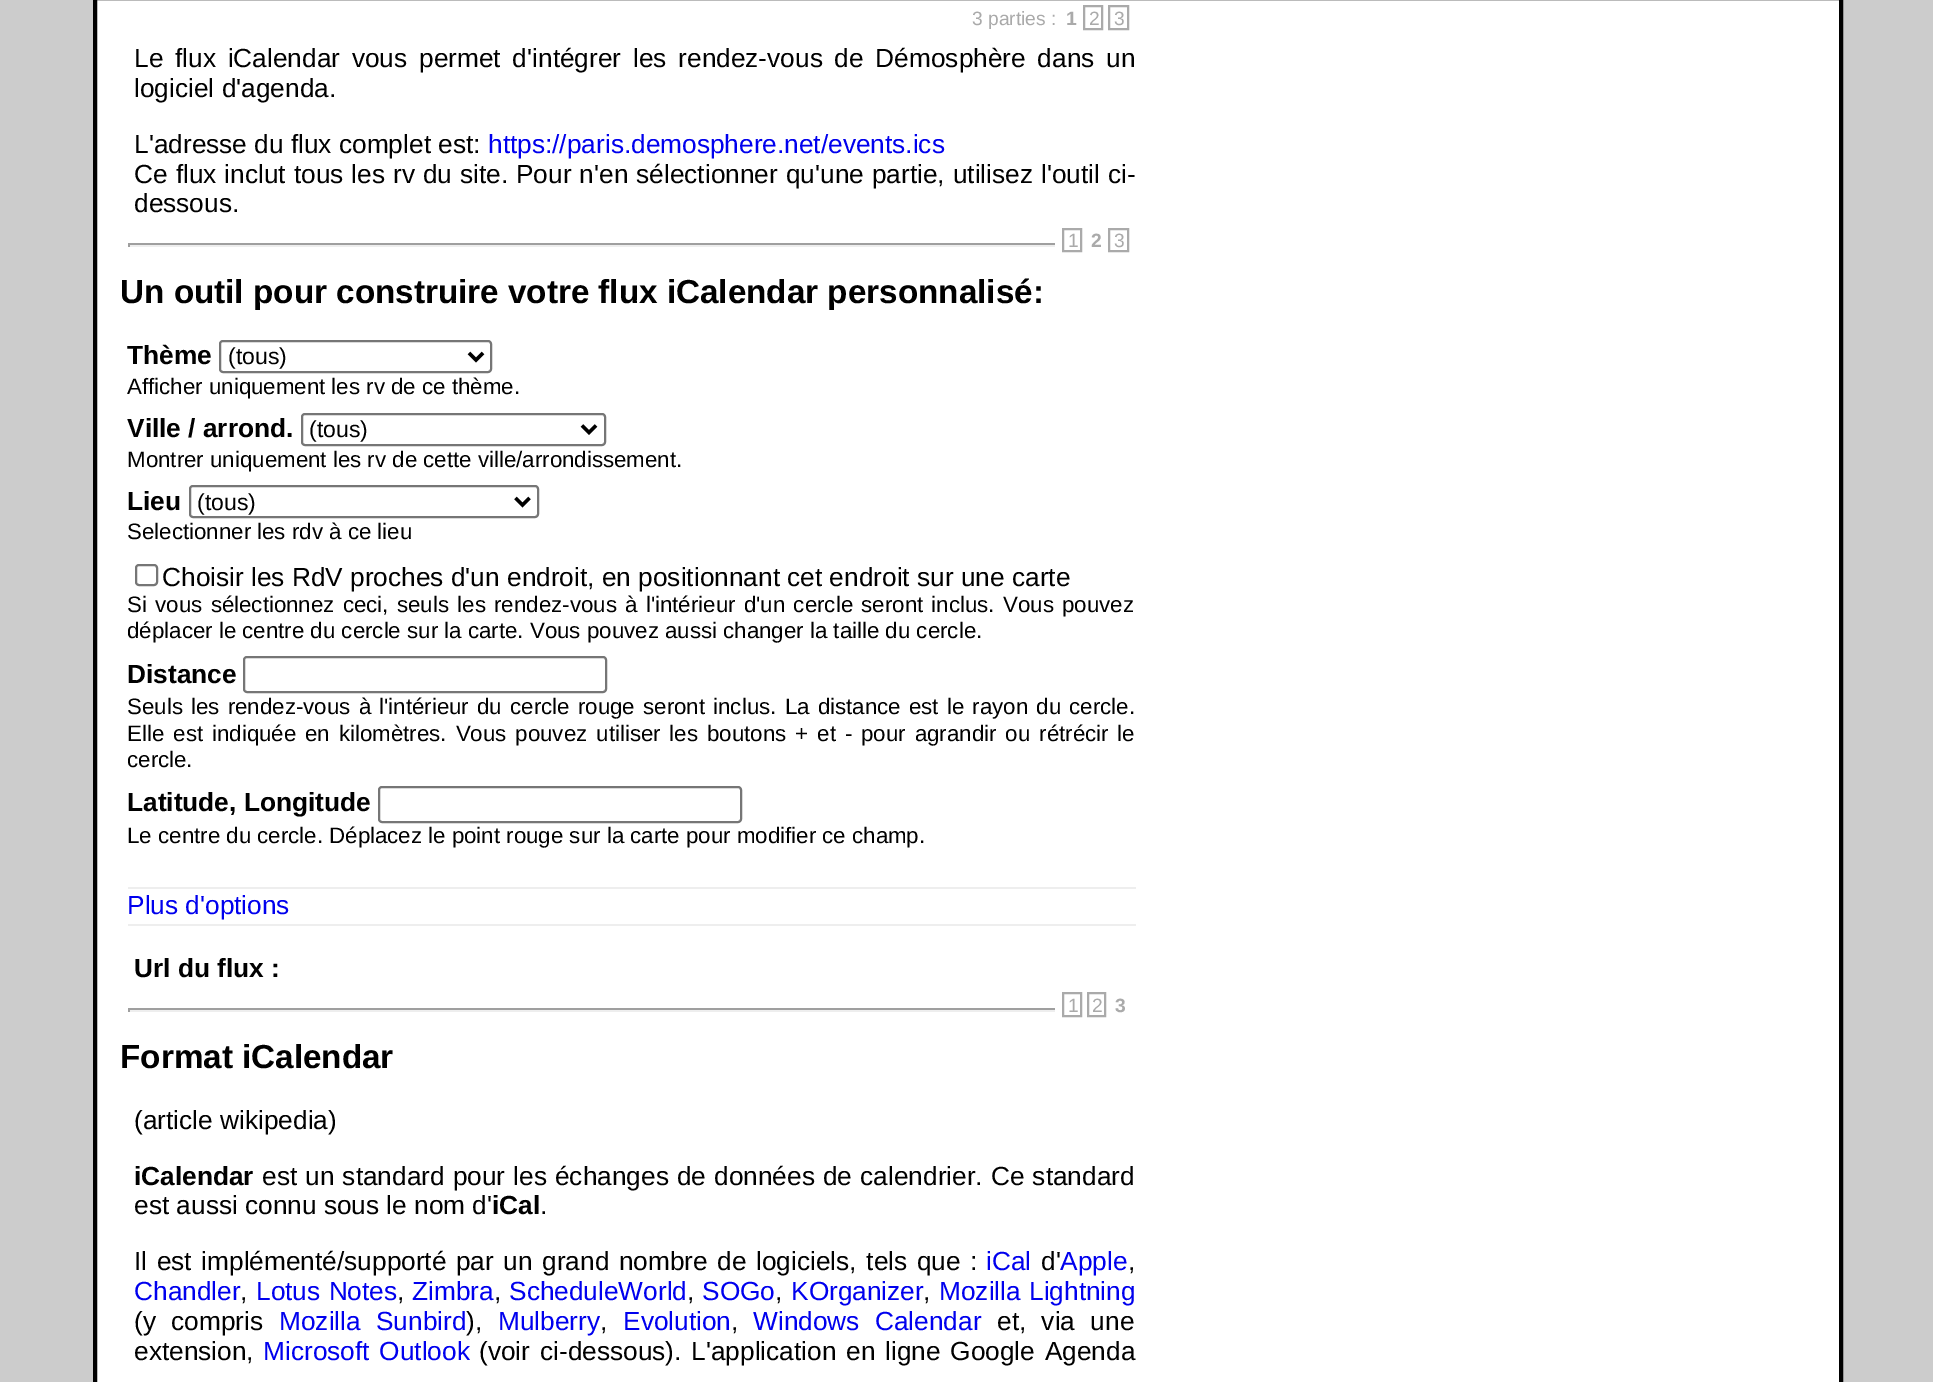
%!PS
<< /PageSize [1933 1382] >> setpagedevice
/rgb { 3 { 255 div 3 1 roll } repeat setrgbcolor } def
/font { [ exch dup neg 0 0 3 -1 roll 0 0 ] selectfont } def
/roundrect { 5 dict begin { /r /h /w /y /x } { exch def } forall
  x r add y moveto x w add y 2 copy h add r arct x w add y h add x 1 index r arct
  x y h add x y r arct x y 2 copy exch w add exch r arct closepath end } def
0 1382 translate 1 -1 scale
4 setmiterlimit
204 204 204 rgb
0 0 1933 1382 rectfill
255 255 255 rgb
95 -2 moveto 1841 -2 lineto 1841 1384 lineto 95 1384 lineto closepath gsave fill grestore
0 0 0 rgb
4 setlinewidth
stroke
170 170 170 rgb
2 setlinewidth
1084 6 18 23 rectstroke
1109 6 19 23 rectstroke
[
  [128 243 927 2 159 159 159]
  [128 245 927 2 238 238 238]
  [128 243 2 4 159 159 159]
] { aload pop rgb rectfill } forall
170 170 170 rgb
1063 229 18 22 rectstroke
1109 229 19 22 rectstroke
118 118 118 rgb
220 341 271 31 3 roundrect stroke
0 0 0 rgb
3.5 setlinewidth
469 353 moveto 476 360 lineto 483 353 lineto stroke
118 118 118 rgb
2 setlinewidth
302 414 303 31 3 roundrect stroke
0 0 0 rgb
3.5 setlinewidth
582 425.5 moveto 589 432.5 lineto 596 425.5 lineto stroke
118 118 118 rgb
2 setlinewidth
190 486 348 31 3 roundrect stroke
0 0 0 rgb
3.5 setlinewidth
515.5 498 moveto 522.5 505 lineto 529.5 498 lineto stroke
238 238 238 rgb
128 887 1008 2 rectfill
118 118 118 rgb
2 setlinewidth
136 565 21 20 3 roundrect stroke
244 657 362 35 3 roundrect stroke
379 787 362 35 3 roundrect stroke
[
  [128 924 1008 2 238 238 238]
  [128 1008 927 2 159 159 159]
  [128 1010 927 2 238 238 238]
  [128 1008 2 4 159 159 159]
] { aload pop rgb rectfill } forall
170 170 170 rgb
1063 993 18 23 rectstroke
1088 993 17 23 rectstroke
/LiberationSans-Regular 19.25 font
972 25 moveto (3 parties :) show
/LiberationSans-Bold 19.25 font
1066 25 moveto (1) show
/LiberationSans-Regular 19.25 font
1089 25 moveto (2) show
1114 25 moveto (3) show
/LiberationSans-Regular 26.25 font
0 0 0 rgb
134 67 moveto 4.5 0 32 (Le flux iCalendar vous permet d'intégrer les rendez-vous de Démosphère dans un) widthshow
134 97 moveto (logiciel d'agenda.) show
134 153 moveto (L'adresse du flux complet est:) show
0 0 238 rgb
488 153 moveto (https://paris.demosphere.net/events.ics) show
0 0 0 rgb
134 183 moveto 0.7 0 32 (Ce flux inclut tous les rv du site. Pour n'en sélectionner qu'une partie, utilisez l'outil ci-) widthshow
134 212 moveto (dessous.) show
/LiberationSans-Regular 19.25 font
170 170 170 rgb
1068 247 moveto (1) show
/LiberationSans-Bold 19.25 font
1091 247 moveto (2) show
/LiberationSans-Regular 19.25 font
1114 247 moveto (3) show
/LiberationSans-Bold 33.25 font
0 0 0 rgb
120 303 moveto (Un outil pour construire votre flux iCalendar personnalisé:) show
/LiberationSans-Bold 26.25 font
127 364 moveto (Thème) show
/LiberationSans-Regular 23 font
228 364 moveto (\(tous\)) show
/LiberationSans-Regular 22.3 font
127 394 moveto (Afficher uniquement les rv de ce thème.) show
/LiberationSans-Bold 26.25 font
127 437 moveto (Ville / arrond.) show
/LiberationSans-Regular 23 font
309 437 moveto (\(tous\)) show
/LiberationSans-Regular 22.3 font
127 467 moveto (Montrer uniquement les rv de cette ville/arrondissement.) show
/LiberationSans-Bold 26.25 font
127 510 moveto (Lieu) show
/LiberationSans-Regular 23 font
197 510 moveto (\(tous\)) show
/LiberationSans-Regular 22.3 font
127 539 moveto (Selectionner les rdv à ce lieu) show
/LiberationSans-Regular 26.25 font
162 586 moveto (Choisir les RdV proches d'un endroit, en positionnant cet endroit sur une carte) show
/LiberationSans-Regular 22.3 font
127 612 moveto 2.1 0 32 (Si vous sélectionnez ceci, seuls les rendez-vous à l'intérieur d'un cercle seront inclus. Vous pouvez) widthshow
127 638 moveto (déplacer le centre du cercle sur la carte. Vous pouvez aussi changer la taille du cercle.) show
/LiberationSans-Bold 26.25 font
127 683 moveto (Distance) show
/LiberationSans-Regular 22.3 font
127 714 moveto 2 0 32 (Seuls les rendez-vous à l'intérieur du cercle rouge seront inclus. La distance est le rayon du cercle.) widthshow
127 741 moveto 2.75 0 32 (Elle est indiquée en kilomètres. Vous pouvez utiliser les boutons + et - pour agrandir ou rétrécir le) widthshow
127 767 moveto (cercle.) show
/LiberationSans-Bold 26.25 font
127 811 moveto (Latitude, Longitude) show
/LiberationSans-Regular 22.3 font
127 843 moveto (Le centre du cercle. Déplacez le point rouge sur la carte pour modifier ce champ.) show
/LiberationSans-Regular 26.25 font
0 0 238 rgb
127 914 moveto (Plus d'options) show
/LiberationSans-Bold 26.25 font
0 0 0 rgb
134 977 moveto (Url du flux :) show
/LiberationSans-Regular 19.25 font
170 170 170 rgb
1068 1012 moveto (1) show
1092 1012 moveto (2) show
/LiberationSans-Bold 19.25 font
1115 1012 moveto (3) show
/LiberationSans-Bold 33.25 font
0 0 0 rgb
120 1068 moveto (Format iCalendar) show
/LiberationSans-Regular 26.25 font
134 1129 moveto (\(article wikipedia\)) show
/LiberationSans-Bold 26.25 font
134 1185 moveto (iCalendar) show
/LiberationSans-Regular 26.25 font
262 1185 moveto 0.8 0 32 (est un standard pour les échanges de données de calendrier. Ce standard) widthshow
134 1214 moveto (est aussi connu sous le nom d') show
/LiberationSans-Bold 26.25 font
492 1214 moveto (iCal) show
/LiberationSans-Regular 26.25 font
540 1214 moveto (.) show
134 1270 moveto 2.25 0 32 (Il est implémenté/supporté par un grand nombre de logiciels, tels que :) widthshow
0 0 238 rgb
986 1270 moveto (iCal) show
0 0 0 rgb
1041 1270 moveto (d') show
0 0 238 rgb
1060 1270 moveto (Apple) show
0 0 0 rgb
1128 1270 moveto (,) show
0 0 238 rgb
134 1300 moveto (Chandler) show
0 0 0 rgb
240 1300 moveto (,) show
0 0 238 rgb
256 1300 moveto 1 0 32 (Lotus Notes) widthshow
0 0 0 rgb
397 1300 moveto (,) show
0 0 238 rgb
412 1300 moveto (Zimbra) show
0 0 0 rgb
494 1300 moveto (,) show
0 0 238 rgb
509 1300 moveto (ScheduleWorld) show
0 0 0 rgb
687 1300 moveto (,) show
0 0 238 rgb
702 1300 moveto (SOGo) show
0 0 0 rgb
775 1300 moveto (,) show
0 0 238 rgb
791 1300 moveto (KOrganizer) show
0 0 0 rgb
923 1300 moveto (,) show
0 0 238 rgb
939 1300 moveto 1 0 32 (Mozilla Lightning) widthshow
0 0 0 rgb
134 1330 moveto 8 0 32 (\(y compris) widthshow
0 0 238 rgb
279 1330 moveto 8 0 32 (Mozilla Sunbird) widthshow
0 0 0 rgb
466 1330 moveto (\),) show
0 0 238 rgb
498 1330 moveto (Mulberry) show
0 0 0 rgb
600 1330 moveto (,) show
0 0 238 rgb
623 1330 moveto (Evolution) show
0 0 0 rgb
731 1330 moveto (,) show
0 0 238 rgb
753 1330 moveto 8 0 32 (Windows Calendar) widthshow
0 0 0 rgb
997 1330 moveto 8 0 32 (et, via une) widthshow
134 1360 moveto (extension,) show
0 0 238 rgb
263 1360 moveto 2.5 0 32 (Microsoft Outlook) widthshow
0 0 0 rgb
479 1360 moveto 2.5 0 32 (\(voir ci-dessous\). L'application en ligne Google Agenda) widthshow
showpage
